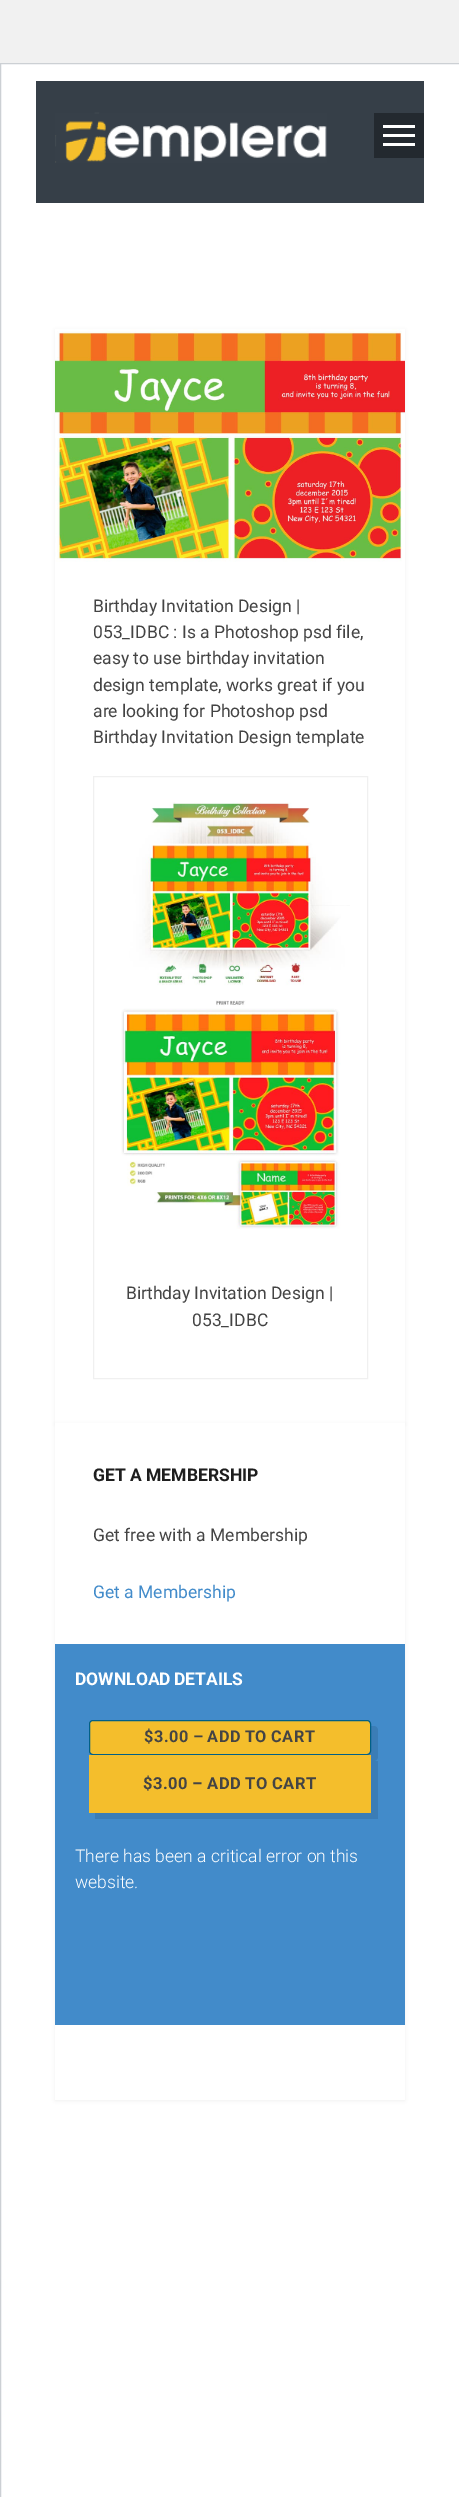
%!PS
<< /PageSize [459 2497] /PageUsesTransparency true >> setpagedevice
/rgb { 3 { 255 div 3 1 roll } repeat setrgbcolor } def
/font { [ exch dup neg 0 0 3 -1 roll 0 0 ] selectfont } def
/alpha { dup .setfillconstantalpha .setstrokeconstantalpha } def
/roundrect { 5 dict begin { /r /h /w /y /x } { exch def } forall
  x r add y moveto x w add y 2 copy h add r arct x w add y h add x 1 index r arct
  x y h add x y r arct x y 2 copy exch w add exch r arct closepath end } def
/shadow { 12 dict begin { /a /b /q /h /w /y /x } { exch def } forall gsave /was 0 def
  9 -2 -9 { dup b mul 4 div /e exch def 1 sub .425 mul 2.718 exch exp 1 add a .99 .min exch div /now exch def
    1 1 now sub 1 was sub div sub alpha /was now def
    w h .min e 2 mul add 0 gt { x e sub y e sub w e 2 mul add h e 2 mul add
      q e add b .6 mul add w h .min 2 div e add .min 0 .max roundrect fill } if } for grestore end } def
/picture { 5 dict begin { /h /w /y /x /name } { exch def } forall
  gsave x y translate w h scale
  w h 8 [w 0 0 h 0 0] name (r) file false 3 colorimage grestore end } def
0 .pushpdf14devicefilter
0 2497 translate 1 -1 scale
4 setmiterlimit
241 241 241 rgb
0 0 459 2497 rectfill
255 255 255 rgb
0.5 63.5 moveto 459.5 63.5 lineto 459.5 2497.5 lineto 0.5 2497.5 lineto closepath gsave fill grestore
204 208 212 rgb
stroke
54 63 72 rgb
36 81 388 122 rectfill
(img/1.rgb) 55 112 272 51 picture
[
  [374 113 50 45 35 41 47]
  [383 125 32 3 255 255 255]
  [383 134 32 3 255 255 255]
  [383 143 32 3 255 255 255]
] { aload pop rgb rectfill } forall
0 0 0 rgb
55 330 350 1094 0 2 0.06 shadow
255 255 255 rgb
55 562 350 861 rectfill
(img/2.rgb) 55 329 350 233 picture
240 240 240 rgb
93.5 776.5 274 602 rectstroke
(img/3.rgb) 121 802 229 427 picture
0 0 0 rgb
55 1424 350 677 0 2 0.06 shadow
255 255 255 rgb
55 1423 350 677 rectfill
66 139 202 rgb
55 1644 350 381 rectfill
59 125 182 rgb
95 1755 moveto 95 1757 lineto 95 1759 97 1761 99 1761 curveto 374 1761 lineto 376 1761 378 1759 378 1757 curveto 378 1730 lineto 378 1728 376 1726 374 1726 curveto 371 1726 lineto 371 1751 lineto 371 1753 370 1755 368 1755 curveto closepath fill
244 190 44 rgb
89.5 1720.5 281 34 3.5 roundrect gsave fill grestore
1 96 135 rgb
stroke
59 125 182 rgb
95 1812 moveto 95 1819 lineto 378 1819 lineto 378 1761 lineto 371 1761 lineto 371 1812 lineto closepath fill
244 190 44 rgb
89 1755 282 58 rectfill
/Roboto-Regular 17.5 font
68 68 68 rgb
[
  [(Birthday Invitation Design |) 93 612]
  [(053_IDBC : Is a Photoshop psd file,) 93 638]
  [(easy to use birthday invitation) 93 664]
  [(design template, works great if you) 93 691]
  [(are looking for Photoshop psd) 93 717]
  [(Birthday Invitation Design template) 93 743]
  [(Birthday Invitation Design |) 126 1299]
  [(053_IDBC) 192 1326]
] { aload pop moveto show } forall
/Roboto-Bold 17.5 font
30 30 30 rgb
93 1481 moveto (GET A MEMBERSHIP) show
/Roboto-Regular 17.5 font
68 68 68 rgb
93 1541 moveto (Get free with a Membership) show
66 139 202 rgb
93 1598 moveto (Get a Membership) show
/Roboto-Bold 17.5 font
255 255 255 rgb
75 1685 moveto -1 0 32 (DOWNLOAD DETAILS) widthshow
/Roboto-Bold 16.25 font
68 68 68 rgb
144 1742 moveto -0.5 0 32 0.5 0 ($3.00 – ADD TO CART) awidthshow
/Roboto-Bold 16.5 font
143 1789 moveto -0.5 0 32 0.5 0 ($3.00 – ADD TO CART) awidthshow
/Roboto-Light 17.5 font
255 255 255 rgb
75 1862 moveto (There has been a critical error on this) show
75 1888 moveto (website.) show
.poppdf14devicefilter showpage
